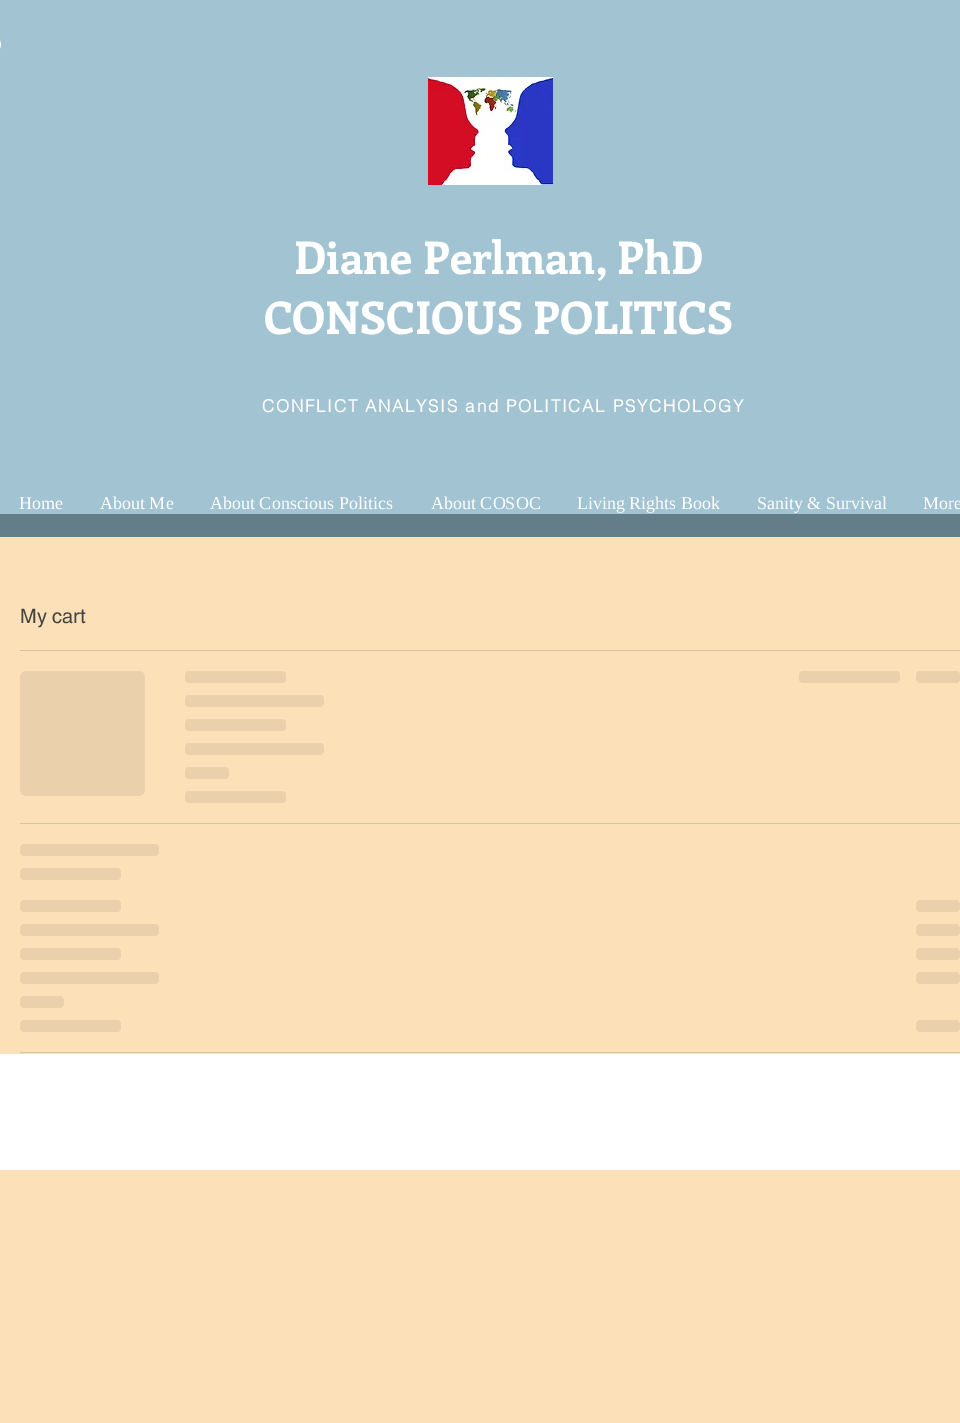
%!PS
<< /PageSize [960 1423] >> setpagedevice
/rgb { 3 { 255 div 3 1 roll } repeat setrgbcolor } def
/font { [ exch dup neg 0 0 3 -1 roll 0 0 ] selectfont } def
/roundrect { 5 dict begin { /r /h /w /y /x } { exch def } forall
  x r add y moveto x w add y 2 copy h add r arct x w add y h add x 1 index r arct
  x y h add x y r arct x y 2 copy exch w add exch r arct closepath end } def
/picture { 5 dict begin { /h /w /y /x /name } { exch def } forall
  gsave x y translate w h scale
  w h 8 [w 0 0 h 0 0] name (r) file false 3 colorimage grestore end } def
0 1423 translate 1 -1 scale
4 setmiterlimit
252 225 184 rgb
0 0 960 1423 rectfill
161 195 210 rgb
0 0 960 514 rectfill
(img/1.rgb) 0 40 1 9 picture
(img/2.rgb) 428 77 125 108 picture
99 126 137 rgb
0 514 960 23 rectfill
215 194 161 rgb
20 650 940 1 rectfill
gsave 20 671 125 125 8 roundrect clip newpath
<< /ShadingType 2 /ColorSpace /DeviceRGB /Coords [20 734 520 734] /Extend [true true] /Function << /FunctionType 3 /Domain [0 1] /Functions [<< /FunctionType 2 /Domain [0 1] /C0 [0.918 0.82 0.675] /C1 [0.918 0.82 0.675] /N 1 >> << /FunctionType 2 /Domain [0 1] /C0 [0.918 0.82 0.675] /C1 [0.843 0.761 0.631] /N 1 >> << /FunctionType 2 /Domain [0 1] /C0 [0.843 0.761 0.631] /C1 [0.918 0.82 0.675] /N 1 >> << /FunctionType 2 /Domain [0 1] /C0 [0.918 0.82 0.675] /C1 [0.918 0.82 0.675] /N 1 >>] /Bounds [0.25 0.37 0.63] /Encode [0 1 0 1 0 1 0 1] >> >> shfill grestore
gsave 185 671 101 12 6 roundrect clip newpath
<< /ShadingType 2 /ColorSpace /DeviceRGB /Coords [185 677 589 677] /Extend [true true] /Function << /FunctionType 3 /Domain [0 1] /Functions [<< /FunctionType 2 /Domain [0 1] /C0 [0.918 0.82 0.675] /C1 [0.918 0.82 0.675] /N 1 >> << /FunctionType 2 /Domain [0 1] /C0 [0.918 0.82 0.675] /C1 [0.843 0.761 0.631] /N 1 >> << /FunctionType 2 /Domain [0 1] /C0 [0.843 0.761 0.631] /C1 [0.918 0.82 0.675] /N 1 >> << /FunctionType 2 /Domain [0 1] /C0 [0.918 0.82 0.675] /C1 [0.918 0.82 0.675] /N 1 >>] /Bounds [0.25 0.37 0.63] /Encode [0 1 0 1 0 1 0 1] >> >> shfill grestore
gsave 185 695 139 12 6 roundrect clip newpath
<< /ShadingType 2 /ColorSpace /DeviceRGB /Coords [185 701 741 701] /Extend [true true] /Function << /FunctionType 3 /Domain [0 1] /Functions [<< /FunctionType 2 /Domain [0 1] /C0 [0.918 0.82 0.675] /C1 [0.918 0.82 0.675] /N 1 >> << /FunctionType 2 /Domain [0 1] /C0 [0.918 0.82 0.675] /C1 [0.843 0.761 0.631] /N 1 >> << /FunctionType 2 /Domain [0 1] /C0 [0.843 0.761 0.631] /C1 [0.918 0.82 0.675] /N 1 >> << /FunctionType 2 /Domain [0 1] /C0 [0.918 0.82 0.675] /C1 [0.918 0.82 0.675] /N 1 >>] /Bounds [0.25 0.37 0.63] /Encode [0 1 0 1 0 1 0 1] >> >> shfill grestore
gsave 185 719 101 12 6 roundrect clip newpath
<< /ShadingType 2 /ColorSpace /DeviceRGB /Coords [185 725 589 725] /Extend [true true] /Function << /FunctionType 3 /Domain [0 1] /Functions [<< /FunctionType 2 /Domain [0 1] /C0 [0.918 0.82 0.675] /C1 [0.918 0.82 0.675] /N 1 >> << /FunctionType 2 /Domain [0 1] /C0 [0.918 0.82 0.675] /C1 [0.843 0.761 0.631] /N 1 >> << /FunctionType 2 /Domain [0 1] /C0 [0.843 0.761 0.631] /C1 [0.918 0.82 0.675] /N 1 >> << /FunctionType 2 /Domain [0 1] /C0 [0.918 0.82 0.675] /C1 [0.918 0.82 0.675] /N 1 >>] /Bounds [0.25 0.37 0.63] /Encode [0 1 0 1 0 1 0 1] >> >> shfill grestore
gsave 185 743 139 12 6 roundrect clip newpath
<< /ShadingType 2 /ColorSpace /DeviceRGB /Coords [185 749 741 749] /Extend [true true] /Function << /FunctionType 3 /Domain [0 1] /Functions [<< /FunctionType 2 /Domain [0 1] /C0 [0.918 0.82 0.675] /C1 [0.918 0.82 0.675] /N 1 >> << /FunctionType 2 /Domain [0 1] /C0 [0.918 0.82 0.675] /C1 [0.843 0.761 0.631] /N 1 >> << /FunctionType 2 /Domain [0 1] /C0 [0.843 0.761 0.631] /C1 [0.918 0.82 0.675] /N 1 >> << /FunctionType 2 /Domain [0 1] /C0 [0.918 0.82 0.675] /C1 [0.918 0.82 0.675] /N 1 >>] /Bounds [0.25 0.37 0.63] /Encode [0 1 0 1 0 1 0 1] >> >> shfill grestore
gsave 185 767 44 12 6 roundrect clip newpath
<< /ShadingType 2 /ColorSpace /DeviceRGB /Coords [185 773 361 773] /Extend [true true] /Function << /FunctionType 3 /Domain [0 1] /Functions [<< /FunctionType 2 /Domain [0 1] /C0 [0.918 0.82 0.675] /C1 [0.918 0.82 0.675] /N 1 >> << /FunctionType 2 /Domain [0 1] /C0 [0.918 0.82 0.675] /C1 [0.843 0.761 0.631] /N 1 >> << /FunctionType 2 /Domain [0 1] /C0 [0.843 0.761 0.631] /C1 [0.918 0.82 0.675] /N 1 >> << /FunctionType 2 /Domain [0 1] /C0 [0.918 0.82 0.675] /C1 [0.918 0.82 0.675] /N 1 >>] /Bounds [0.25 0.37 0.63] /Encode [0 1 0 1 0 1 0 1] >> >> shfill grestore
gsave 185 791 101 12 6 roundrect clip newpath
<< /ShadingType 2 /ColorSpace /DeviceRGB /Coords [185 797 589 797] /Extend [true true] /Function << /FunctionType 3 /Domain [0 1] /Functions [<< /FunctionType 2 /Domain [0 1] /C0 [0.918 0.82 0.675] /C1 [0.918 0.82 0.675] /N 1 >> << /FunctionType 2 /Domain [0 1] /C0 [0.918 0.82 0.675] /C1 [0.843 0.761 0.631] /N 1 >> << /FunctionType 2 /Domain [0 1] /C0 [0.843 0.761 0.631] /C1 [0.918 0.82 0.675] /N 1 >> << /FunctionType 2 /Domain [0 1] /C0 [0.918 0.82 0.675] /C1 [0.918 0.82 0.675] /N 1 >>] /Bounds [0.25 0.37 0.63] /Encode [0 1 0 1 0 1 0 1] >> >> shfill grestore
gsave 799 671 101 12 6 roundrect clip newpath
<< /ShadingType 2 /ColorSpace /DeviceRGB /Coords [799 677 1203 677] /Extend [true true] /Function << /FunctionType 3 /Domain [0 1] /Functions [<< /FunctionType 2 /Domain [0 1] /C0 [0.918 0.82 0.675] /C1 [0.918 0.82 0.675] /N 1 >> << /FunctionType 2 /Domain [0 1] /C0 [0.918 0.82 0.675] /C1 [0.843 0.761 0.631] /N 1 >> << /FunctionType 2 /Domain [0 1] /C0 [0.843 0.761 0.631] /C1 [0.918 0.82 0.675] /N 1 >> << /FunctionType 2 /Domain [0 1] /C0 [0.918 0.82 0.675] /C1 [0.918 0.82 0.675] /N 1 >>] /Bounds [0.25 0.37 0.63] /Encode [0 1 0 1 0 1 0 1] >> >> shfill grestore
gsave 916 671 44 12 6 roundrect clip newpath
<< /ShadingType 2 /ColorSpace /DeviceRGB /Coords [916 677 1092 677] /Extend [true true] /Function << /FunctionType 3 /Domain [0 1] /Functions [<< /FunctionType 2 /Domain [0 1] /C0 [0.918 0.82 0.675] /C1 [0.918 0.82 0.675] /N 1 >> << /FunctionType 2 /Domain [0 1] /C0 [0.918 0.82 0.675] /C1 [0.843 0.761 0.631] /N 1 >> << /FunctionType 2 /Domain [0 1] /C0 [0.843 0.761 0.631] /C1 [0.918 0.82 0.675] /N 1 >> << /FunctionType 2 /Domain [0 1] /C0 [0.918 0.82 0.675] /C1 [0.918 0.82 0.675] /N 1 >>] /Bounds [0.25 0.37 0.63] /Encode [0 1 0 1 0 1 0 1] >> >> shfill grestore
20 823 940 1 rectfill
gsave 20 844 139 12 6 roundrect clip newpath
<< /ShadingType 2 /ColorSpace /DeviceRGB /Coords [20 850 576 850] /Extend [true true] /Function << /FunctionType 3 /Domain [0 1] /Functions [<< /FunctionType 2 /Domain [0 1] /C0 [0.918 0.82 0.675] /C1 [0.918 0.82 0.675] /N 1 >> << /FunctionType 2 /Domain [0 1] /C0 [0.918 0.82 0.675] /C1 [0.843 0.761 0.631] /N 1 >> << /FunctionType 2 /Domain [0 1] /C0 [0.843 0.761 0.631] /C1 [0.918 0.82 0.675] /N 1 >> << /FunctionType 2 /Domain [0 1] /C0 [0.918 0.82 0.675] /C1 [0.918 0.82 0.675] /N 1 >>] /Bounds [0.25 0.37 0.63] /Encode [0 1 0 1 0 1 0 1] >> >> shfill grestore
gsave 20 868 101 12 6 roundrect clip newpath
<< /ShadingType 2 /ColorSpace /DeviceRGB /Coords [20 874 424 874] /Extend [true true] /Function << /FunctionType 3 /Domain [0 1] /Functions [<< /FunctionType 2 /Domain [0 1] /C0 [0.918 0.82 0.675] /C1 [0.918 0.82 0.675] /N 1 >> << /FunctionType 2 /Domain [0 1] /C0 [0.918 0.82 0.675] /C1 [0.843 0.761 0.631] /N 1 >> << /FunctionType 2 /Domain [0 1] /C0 [0.843 0.761 0.631] /C1 [0.918 0.82 0.675] /N 1 >> << /FunctionType 2 /Domain [0 1] /C0 [0.918 0.82 0.675] /C1 [0.918 0.82 0.675] /N 1 >>] /Bounds [0.25 0.37 0.63] /Encode [0 1 0 1 0 1 0 1] >> >> shfill grestore
gsave 20 900 101 12 6 roundrect clip newpath
<< /ShadingType 2 /ColorSpace /DeviceRGB /Coords [20 906 424 906] /Extend [true true] /Function << /FunctionType 3 /Domain [0 1] /Functions [<< /FunctionType 2 /Domain [0 1] /C0 [0.918 0.82 0.675] /C1 [0.918 0.82 0.675] /N 1 >> << /FunctionType 2 /Domain [0 1] /C0 [0.918 0.82 0.675] /C1 [0.843 0.761 0.631] /N 1 >> << /FunctionType 2 /Domain [0 1] /C0 [0.843 0.761 0.631] /C1 [0.918 0.82 0.675] /N 1 >> << /FunctionType 2 /Domain [0 1] /C0 [0.918 0.82 0.675] /C1 [0.918 0.82 0.675] /N 1 >>] /Bounds [0.25 0.37 0.63] /Encode [0 1 0 1 0 1 0 1] >> >> shfill grestore
gsave 916 900 44 12 6 roundrect clip newpath
<< /ShadingType 2 /ColorSpace /DeviceRGB /Coords [916 906 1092 906] /Extend [true true] /Function << /FunctionType 3 /Domain [0 1] /Functions [<< /FunctionType 2 /Domain [0 1] /C0 [0.918 0.82 0.675] /C1 [0.918 0.82 0.675] /N 1 >> << /FunctionType 2 /Domain [0 1] /C0 [0.918 0.82 0.675] /C1 [0.843 0.761 0.631] /N 1 >> << /FunctionType 2 /Domain [0 1] /C0 [0.843 0.761 0.631] /C1 [0.918 0.82 0.675] /N 1 >> << /FunctionType 2 /Domain [0 1] /C0 [0.918 0.82 0.675] /C1 [0.918 0.82 0.675] /N 1 >>] /Bounds [0.25 0.37 0.63] /Encode [0 1 0 1 0 1 0 1] >> >> shfill grestore
gsave 20 924 139 12 6 roundrect clip newpath
<< /ShadingType 2 /ColorSpace /DeviceRGB /Coords [20 930 576 930] /Extend [true true] /Function << /FunctionType 3 /Domain [0 1] /Functions [<< /FunctionType 2 /Domain [0 1] /C0 [0.918 0.82 0.675] /C1 [0.918 0.82 0.675] /N 1 >> << /FunctionType 2 /Domain [0 1] /C0 [0.918 0.82 0.675] /C1 [0.843 0.761 0.631] /N 1 >> << /FunctionType 2 /Domain [0 1] /C0 [0.843 0.761 0.631] /C1 [0.918 0.82 0.675] /N 1 >> << /FunctionType 2 /Domain [0 1] /C0 [0.918 0.82 0.675] /C1 [0.918 0.82 0.675] /N 1 >>] /Bounds [0.25 0.37 0.63] /Encode [0 1 0 1 0 1 0 1] >> >> shfill grestore
gsave 916 924 44 12 6 roundrect clip newpath
<< /ShadingType 2 /ColorSpace /DeviceRGB /Coords [916 930 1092 930] /Extend [true true] /Function << /FunctionType 3 /Domain [0 1] /Functions [<< /FunctionType 2 /Domain [0 1] /C0 [0.918 0.82 0.675] /C1 [0.918 0.82 0.675] /N 1 >> << /FunctionType 2 /Domain [0 1] /C0 [0.918 0.82 0.675] /C1 [0.843 0.761 0.631] /N 1 >> << /FunctionType 2 /Domain [0 1] /C0 [0.843 0.761 0.631] /C1 [0.918 0.82 0.675] /N 1 >> << /FunctionType 2 /Domain [0 1] /C0 [0.918 0.82 0.675] /C1 [0.918 0.82 0.675] /N 1 >>] /Bounds [0.25 0.37 0.63] /Encode [0 1 0 1 0 1 0 1] >> >> shfill grestore
gsave 20 948 101 12 6 roundrect clip newpath
<< /ShadingType 2 /ColorSpace /DeviceRGB /Coords [20 954 424 954] /Extend [true true] /Function << /FunctionType 3 /Domain [0 1] /Functions [<< /FunctionType 2 /Domain [0 1] /C0 [0.918 0.82 0.675] /C1 [0.918 0.82 0.675] /N 1 >> << /FunctionType 2 /Domain [0 1] /C0 [0.918 0.82 0.675] /C1 [0.843 0.761 0.631] /N 1 >> << /FunctionType 2 /Domain [0 1] /C0 [0.843 0.761 0.631] /C1 [0.918 0.82 0.675] /N 1 >> << /FunctionType 2 /Domain [0 1] /C0 [0.918 0.82 0.675] /C1 [0.918 0.82 0.675] /N 1 >>] /Bounds [0.25 0.37 0.63] /Encode [0 1 0 1 0 1 0 1] >> >> shfill grestore
gsave 916 948 44 12 6 roundrect clip newpath
<< /ShadingType 2 /ColorSpace /DeviceRGB /Coords [916 954 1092 954] /Extend [true true] /Function << /FunctionType 3 /Domain [0 1] /Functions [<< /FunctionType 2 /Domain [0 1] /C0 [0.918 0.82 0.675] /C1 [0.918 0.82 0.675] /N 1 >> << /FunctionType 2 /Domain [0 1] /C0 [0.918 0.82 0.675] /C1 [0.843 0.761 0.631] /N 1 >> << /FunctionType 2 /Domain [0 1] /C0 [0.843 0.761 0.631] /C1 [0.918 0.82 0.675] /N 1 >> << /FunctionType 2 /Domain [0 1] /C0 [0.918 0.82 0.675] /C1 [0.918 0.82 0.675] /N 1 >>] /Bounds [0.25 0.37 0.63] /Encode [0 1 0 1 0 1 0 1] >> >> shfill grestore
gsave 20 972 139 12 6 roundrect clip newpath
<< /ShadingType 2 /ColorSpace /DeviceRGB /Coords [20 978 576 978] /Extend [true true] /Function << /FunctionType 3 /Domain [0 1] /Functions [<< /FunctionType 2 /Domain [0 1] /C0 [0.918 0.82 0.675] /C1 [0.918 0.82 0.675] /N 1 >> << /FunctionType 2 /Domain [0 1] /C0 [0.918 0.82 0.675] /C1 [0.843 0.761 0.631] /N 1 >> << /FunctionType 2 /Domain [0 1] /C0 [0.843 0.761 0.631] /C1 [0.918 0.82 0.675] /N 1 >> << /FunctionType 2 /Domain [0 1] /C0 [0.918 0.82 0.675] /C1 [0.918 0.82 0.675] /N 1 >>] /Bounds [0.25 0.37 0.63] /Encode [0 1 0 1 0 1 0 1] >> >> shfill grestore
gsave 916 972 44 12 6 roundrect clip newpath
<< /ShadingType 2 /ColorSpace /DeviceRGB /Coords [916 978 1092 978] /Extend [true true] /Function << /FunctionType 3 /Domain [0 1] /Functions [<< /FunctionType 2 /Domain [0 1] /C0 [0.918 0.82 0.675] /C1 [0.918 0.82 0.675] /N 1 >> << /FunctionType 2 /Domain [0 1] /C0 [0.918 0.82 0.675] /C1 [0.843 0.761 0.631] /N 1 >> << /FunctionType 2 /Domain [0 1] /C0 [0.843 0.761 0.631] /C1 [0.918 0.82 0.675] /N 1 >> << /FunctionType 2 /Domain [0 1] /C0 [0.918 0.82 0.675] /C1 [0.918 0.82 0.675] /N 1 >>] /Bounds [0.25 0.37 0.63] /Encode [0 1 0 1 0 1 0 1] >> >> shfill grestore
gsave 20 996 44 12 6 roundrect clip newpath
<< /ShadingType 2 /ColorSpace /DeviceRGB /Coords [20 1002 196 1002] /Extend [true true] /Function << /FunctionType 3 /Domain [0 1] /Functions [<< /FunctionType 2 /Domain [0 1] /C0 [0.918 0.82 0.675] /C1 [0.918 0.82 0.675] /N 1 >> << /FunctionType 2 /Domain [0 1] /C0 [0.918 0.82 0.675] /C1 [0.843 0.761 0.631] /N 1 >> << /FunctionType 2 /Domain [0 1] /C0 [0.843 0.761 0.631] /C1 [0.918 0.82 0.675] /N 1 >> << /FunctionType 2 /Domain [0 1] /C0 [0.918 0.82 0.675] /C1 [0.918 0.82 0.675] /N 1 >>] /Bounds [0.25 0.37 0.63] /Encode [0 1 0 1 0 1 0 1] >> >> shfill grestore
gsave 20 1020 101 12 6 roundrect clip newpath
<< /ShadingType 2 /ColorSpace /DeviceRGB /Coords [20 1026 424 1026] /Extend [true true] /Function << /FunctionType 3 /Domain [0 1] /Functions [<< /FunctionType 2 /Domain [0 1] /C0 [0.918 0.82 0.675] /C1 [0.918 0.82 0.675] /N 1 >> << /FunctionType 2 /Domain [0 1] /C0 [0.918 0.82 0.675] /C1 [0.843 0.761 0.631] /N 1 >> << /FunctionType 2 /Domain [0 1] /C0 [0.843 0.761 0.631] /C1 [0.918 0.82 0.675] /N 1 >> << /FunctionType 2 /Domain [0 1] /C0 [0.918 0.82 0.675] /C1 [0.918 0.82 0.675] /N 1 >>] /Bounds [0.25 0.37 0.63] /Encode [0 1 0 1 0 1 0 1] >> >> shfill grestore
gsave 916 1020 44 12 6 roundrect clip newpath
<< /ShadingType 2 /ColorSpace /DeviceRGB /Coords [916 1026 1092 1026] /Extend [true true] /Function << /FunctionType 3 /Domain [0 1] /Functions [<< /FunctionType 2 /Domain [0 1] /C0 [0.918 0.82 0.675] /C1 [0.918 0.82 0.675] /N 1 >> << /FunctionType 2 /Domain [0 1] /C0 [0.918 0.82 0.675] /C1 [0.843 0.761 0.631] /N 1 >> << /FunctionType 2 /Domain [0 1] /C0 [0.843 0.761 0.631] /C1 [0.918 0.82 0.675] /N 1 >> << /FunctionType 2 /Domain [0 1] /C0 [0.918 0.82 0.675] /C1 [0.918 0.82 0.675] /N 1 >>] /Bounds [0.25 0.37 0.63] /Encode [0 1 0 1 0 1 0 1] >> >> shfill grestore
20 1052 940 1 rectfill
255 255 255 rgb
0 1054 960 116 rectfill
/Enriqueta-Bold 45 font
294 274 moveto (Diane Perlman, PhD) show
264 334 moveto (CONSCIOUS POLITICS) show
/helvetica-Bold 17 font
262 412 moveto 1.7 0 (CONFLICT ANALYSIS and POLITICAL PSYCHOLOGY) ashow
/LiberationSerif-Regular 18 font
[
  [(Home) 19 509]
  [(About Me) 100 509]
  [(About Conscious Politics) 210 509]
  [(About COSOC) 431 509]
  [(Living Rights Book) 577 509]
  [(Sanity & Survival) 757 509]
  [(More) 923 509]
] { aload pop moveto show } forall
/helvetica-Regular 20 font
69 69 69 rgb
20 623 moveto (My cart) show
showpage
